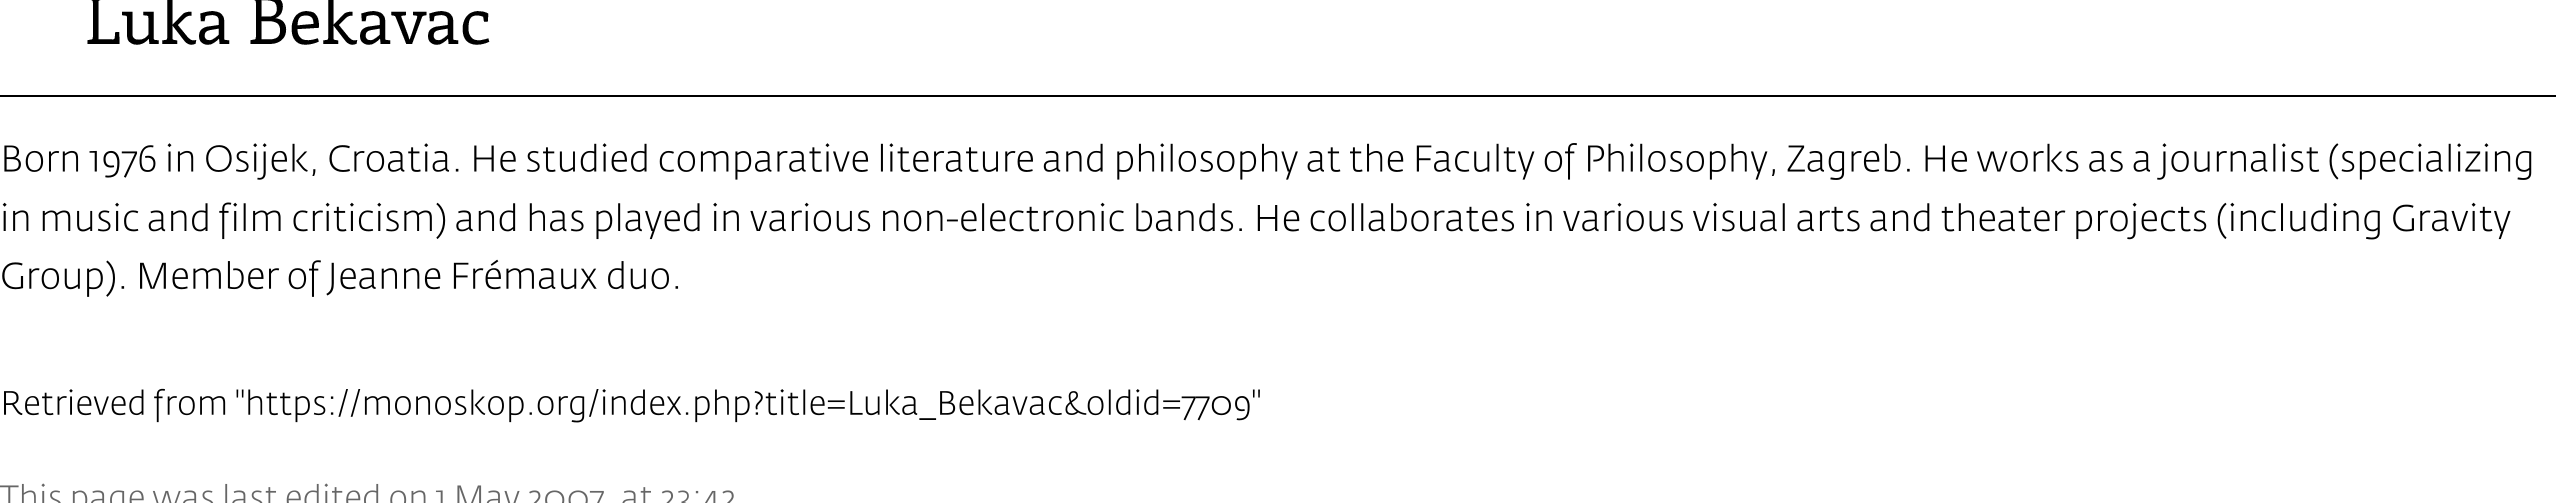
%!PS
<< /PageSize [2556 503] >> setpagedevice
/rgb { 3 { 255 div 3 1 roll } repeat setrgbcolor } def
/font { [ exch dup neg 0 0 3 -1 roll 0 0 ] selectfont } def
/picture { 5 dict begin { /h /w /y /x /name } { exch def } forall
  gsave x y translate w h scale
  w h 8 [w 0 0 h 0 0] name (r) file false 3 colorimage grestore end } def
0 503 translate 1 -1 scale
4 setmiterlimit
255 255 255 rgb
0 0 2556 503 rectfill
0 0 0 rgb
0 95 2556 2 rectfill
(img/1.rgb) 4 143 312 37 picture
(img/2.rgb) 329 143 121 29 picture
(img/3.rgb) 455 143 2077 37 picture
(img/4.rgb) 2 202 2509 38 picture
(img/5.rgb) 2 260 319 37 picture
(img/6.rgb) 326 259 271 37 picture
(img/7.rgb) 608 261 71 29 picture
(img/8.rgb) 4 388 240 35 picture
(img/9.rgb) 248 389 1002 34 picture
(img/10.rgb) 1252 389 8 9 picture
(img/11.rgb) 0 483 734 20 picture
/Enriqueta-Regular 67.25 font
84 44 moveto (Luka Bekavac) show
showpage
